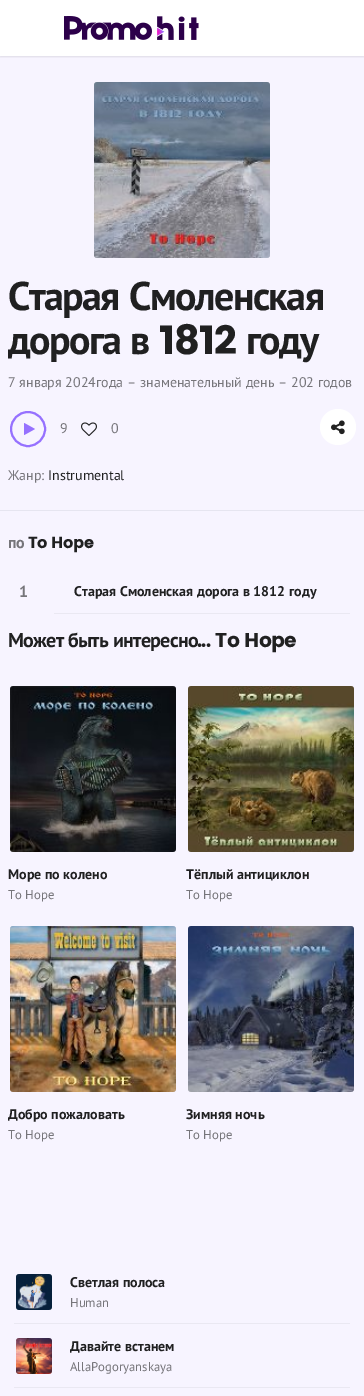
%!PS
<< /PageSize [364 1396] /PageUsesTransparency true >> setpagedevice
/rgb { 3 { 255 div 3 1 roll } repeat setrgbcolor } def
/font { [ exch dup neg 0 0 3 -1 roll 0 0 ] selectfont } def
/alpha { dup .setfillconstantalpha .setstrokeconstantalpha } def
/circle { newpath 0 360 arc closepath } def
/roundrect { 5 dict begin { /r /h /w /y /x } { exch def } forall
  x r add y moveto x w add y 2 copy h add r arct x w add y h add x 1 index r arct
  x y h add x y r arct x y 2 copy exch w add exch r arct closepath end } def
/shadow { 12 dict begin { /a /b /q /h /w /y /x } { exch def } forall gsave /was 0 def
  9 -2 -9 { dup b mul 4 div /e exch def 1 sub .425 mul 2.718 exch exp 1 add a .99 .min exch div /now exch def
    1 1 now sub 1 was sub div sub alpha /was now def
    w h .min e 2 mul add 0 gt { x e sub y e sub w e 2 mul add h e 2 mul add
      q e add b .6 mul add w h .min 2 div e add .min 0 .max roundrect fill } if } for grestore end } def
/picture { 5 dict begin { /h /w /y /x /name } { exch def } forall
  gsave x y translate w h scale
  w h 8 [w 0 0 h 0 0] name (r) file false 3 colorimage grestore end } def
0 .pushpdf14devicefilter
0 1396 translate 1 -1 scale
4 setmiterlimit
255 255 255 rgb
0 0 364 1396 rectfill
247 244 255 rgb
0 56 364 1340 rectfill
gsave
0 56 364 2 rectclip
0 0 0 rgb
0 1 364 56 0 1 0.1 shadow
grestore
(img/1.rgb) 64 16 135 24 picture
230 229 240 rgb
0 510 364 1 rectfill
(img/2.rgb) 94 82 176 176 picture
150 113 255 rgb
2 setlinewidth
28 429 17 circle stroke
(img/3.rgb) 24 423 11 12 picture
(img/4.rgb) 81 422 16 14 picture
255 255 255 rgb
338 427 18 circle fill
(img/5.rgb) 331 420 14 15 picture
234 232 242 rgb
54 613 296 1 rectfill
(img/6.rgb) 10 686 166 166 picture
(img/7.rgb) 188 686 166 166 picture
(img/8.rgb) 10 926 166 166 picture
(img/9.rgb) 188 926 166 166 picture
(img/10.rgb) 16 1274 36 36 picture
14 1323 336 1 rectfill
(img/11.rgb) 16 1338 36 36 picture
14 1387 336 1 rectfill
/PTSans-Bold 40 font
32 32 33 rgb
8 310 moveto 2 0 32 -1.6 0 (Старая Смоленская) awidthshow
8 354 moveto 1 0 32 -1.6 0 (дорога в) awidthshow
/Poppins-Bold 40 font
159 354 moveto -1.6 0 (1812) ashow
/PTSans-Bold 40 font
246 354 moveto -1.6 0 (году) ashow
/PTSans-Regular 14 font
118 117 122 rgb
[
  [(7 января 2024года – знаменательный день – 202 годов) 8 387]
  [(9) 60 433]
  [(0) 111 433]
  [(Жанр:) 8 480]
] { aload pop moveto show } forall
32 32 33 rgb
48 480 moveto (Instrumental) show
/PTSans-Bold 16 font
118 117 122 rgb
8 548 moveto -0.5 0 (по) ashow
/Poppins-Bold 16 font
32 32 33 rgb
28 548 moveto -0.5 0 (To Hope) ashow
/PTSans-Bold 16 font
118 117 122 rgb
19 597 moveto (1) show
/PTSans-Bold 14 font
32 32 33 rgb
74 596 moveto (Старая Смоленская дорога в 1812 году) show
/PTSans-Bold 20 font
8 647 moveto -0.75 0 (Может) ashow
68 647 moveto -0.75 0 (быть) ashow
113 647 moveto -0.75 0 (интересно) ashow
/Poppins-Bold 20 font
197 647 moveto -0.75 0 (... To Hope) ashow
/PTSans-Bold 14 font
8 879 moveto (Море по колено) show
/PTSans-Regular 12.75 font
118 117 122 rgb
8 899 moveto (To Hope) show
/PTSans-Bold 14 font
32 32 33 rgb
186 879 moveto (Тёплый антициклон) show
/PTSans-Regular 12.75 font
118 117 122 rgb
186 899 moveto (To Hope) show
/PTSans-Bold 14 font
32 32 33 rgb
8 1119 moveto (Добро пожаловать) show
/PTSans-Regular 12.75 font
118 117 122 rgb
8 1139 moveto (To Hope) show
/PTSans-Bold 14 font
32 32 33 rgb
186 1119 moveto (Зимняя ночь) show
/PTSans-Regular 12.75 font
118 117 122 rgb
186 1139 moveto (To Hope) show
/PTSans-Bold 14 font
32 32 33 rgb
70 1287 moveto (Светлая полоса) show
/PTSans-Regular 12.75 font
118 117 122 rgb
70 1307 moveto (Human) show
/PTSans-Bold 14 font
32 32 33 rgb
70 1351 moveto (Давайте встанем) show
/PTSans-Regular 12.75 font
118 117 122 rgb
70 1371 moveto (AllaPogoryanskaya) show
.poppdf14devicefilter showpage
